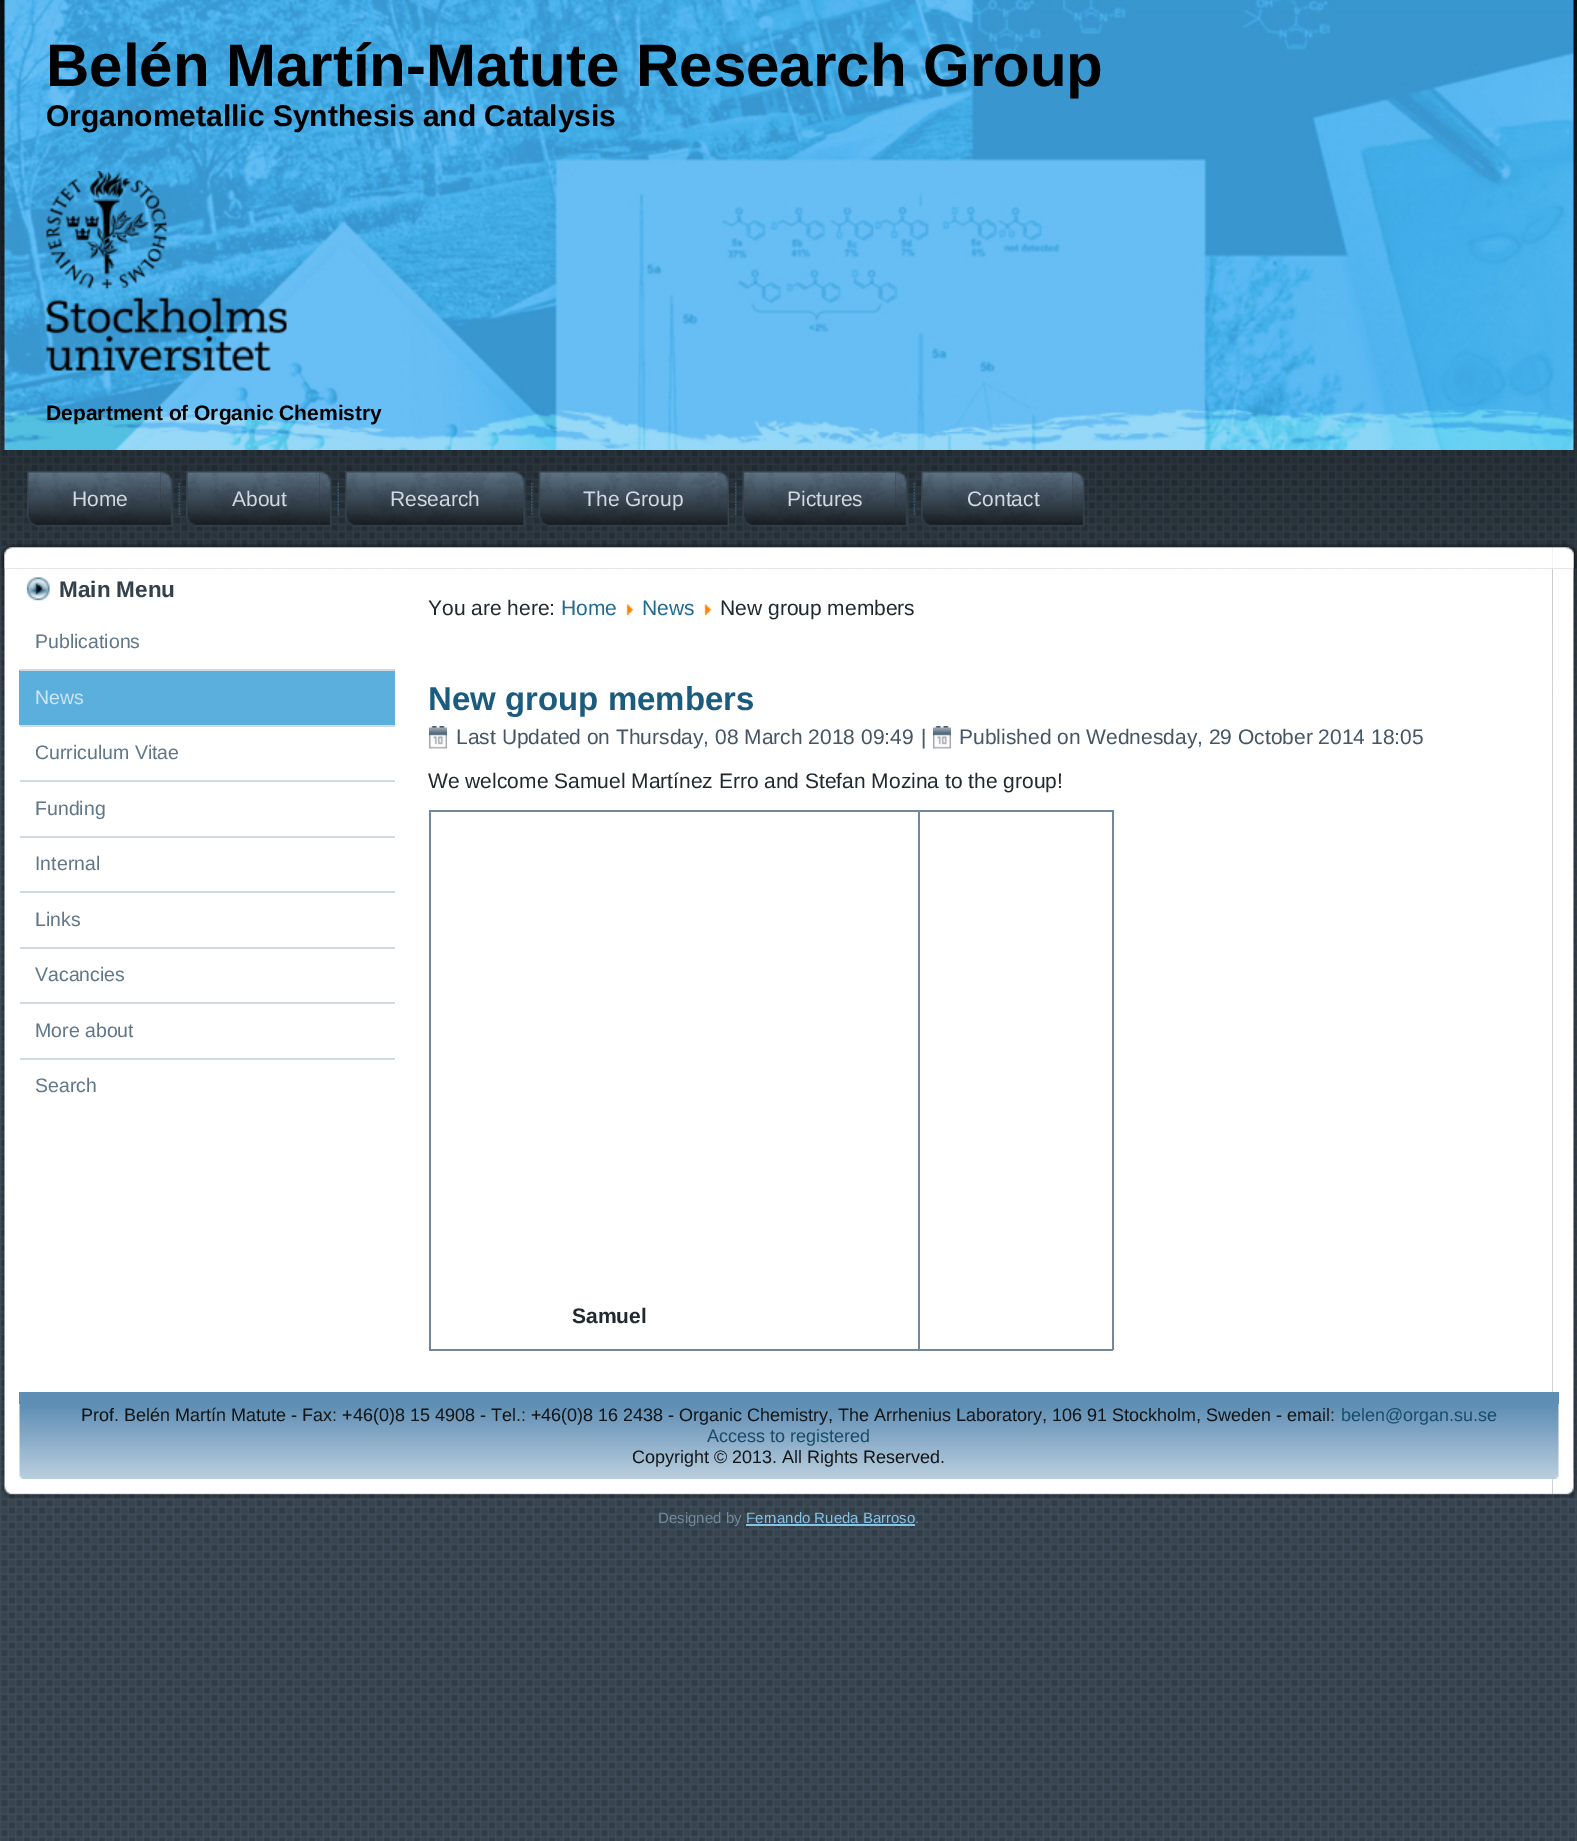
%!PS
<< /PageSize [1577 1841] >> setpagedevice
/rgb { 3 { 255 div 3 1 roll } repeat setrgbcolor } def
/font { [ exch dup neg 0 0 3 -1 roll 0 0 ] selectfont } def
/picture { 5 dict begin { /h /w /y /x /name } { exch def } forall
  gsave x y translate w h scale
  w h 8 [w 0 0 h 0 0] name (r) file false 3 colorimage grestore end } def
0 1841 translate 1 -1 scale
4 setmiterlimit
255 255 255 rgb
0 0 1577 1841 rectfill
(img/1.rgb) 0 750 1577 1091 picture
(img/2.rgb) 0 0 1577 750 picture
(img/3.rgb) 4 0 1570 450 picture
(img/4.rgb) 46 171 241 200 picture
(img/5.rgb) 27 471 134 56 picture
(img/6.rgb) 160 471 13 56 picture
(img/7.rgb) 178 482 2 33 picture
(img/8.rgb) 186 471 134 56 picture
(img/9.rgb) 319 471 13 56 picture
(img/10.rgb) 337 482 2 33 picture
(img/11.rgb) 345 471 168 56 picture
(img/12.rgb) 513 471 12 56 picture
(img/13.rgb) 531 482 2 33 picture
(img/14.rgb) 538 471 179 56 picture
(img/15.rgb) 717 471 12 56 picture
(img/16.rgb) 735 482 2 33 picture
(img/17.rgb) 742 471 154 56 picture
(img/18.rgb) 895 471 13 56 picture
(img/19.rgb) 913 482 2 33 picture
(img/20.rgb) 921 471 152 56 picture
(img/21.rgb) 1072 471 13 56 picture
(img/22.rgb) 1 544 1552 955 picture
(img/23.rgb) 1 544 1552 25 picture
(img/26.rgb) 1 568 1552 905 picture
(img/27.rgb) 1552 568 25 905 picture
(img/24.rgb) 1552 544 25 954 picture
(img/25.rgb) 1552 544 25 25 picture
(img/28.rgb) 26 577 24 24 picture
[
  [19 670 376 55 91 175 220]
  [20 669 375 2 210 217 224]
  [20 725 375 2 210 217 224]
  [20 780 375 2 210 217 224]
  [20 836 375 2 210 217 224]
  [20 891 375 2 210 217 224]
  [20 947 375 2 210 217 224]
  [20 1002 375 2 210 217 224]
  [20 1058 375 2 210 217 224]
] { aload pop rgb rectfill } forall
(img/29.rgb) 626 604 8 11 picture
(img/29.rgb) 704 604 8 11 picture
(img/30.rgb) 429 726 18 23 picture
(img/31.rgb) 933 726 18 23 picture
[
  [918 810 195 2 114 137 157]
  [1112 810 2 540 114 137 157]
  [918 1349 195 2 114 137 157]
  [918 810 2 540 114 137 157]
  [429 810 491 2 114 137 157]
  [429 1349 491 2 114 137 157]
  [429 810 2 540 114 137 157]
] { aload pop rgb rectfill } forall
(img/32.rgb) 19 1404 1535 75 picture
(img/33.rgb) 1554 1404 5 75 picture
95 142 180 rgb
19 1392 1540 12 rectfill
133 195 229 rgb
746 1524 169 2 rectfill
/LiberationSans-Bold 60 font
0 0 0 rgb
46 86 moveto (Belén Martín-Matute Research Group) show
/LiberationSans-Bold 30 font
46 126 moveto (Organometallic Synthesis and Catalysis) show
/LiberationSans-Bold 21 font
46 420 moveto (Department of Organic Chemistry) show
/LiberationSans-Regular 21 font
210 217 224 rgb
[
  [(Home) 72 506]
  [(About) 232 506]
  [(Research) 390 506]
  [(The Group) 583 506]
  [(Pictures) 787 506]
  [(Contact) 967 506]
] { aload pop moveto show } forall
/LiberationSans-Bold 22.5 font
52 65 75 rgb
59 597 moveto (Main Menu) show
/LiberationSans-Regular 19.5 font
96 119 138 rgb
35 648 moveto (Publications) show
205 230 244 rgb
35 704 moveto (News) show
96 119 138 rgb
[
  [(Curriculum Vitae) 35 759]
  [(Funding) 35 815]
  [(Internal) 35 870]
  [(Links) 35 926]
  [(Vacancies) 35 981]
  [(More about) 35 1037]
  [(Search) 35 1092]
] { aload pop moveto show } forall
/LiberationSans-Regular 21 font
33 41 48 rgb
428 615 moveto (You are here:) show
31 107 147 rgb
561 615 moveto (Home) show
642 615 moveto (News) show
33 41 48 rgb
720 615 moveto (New group members) show
/LiberationSans-Bold 33 font
27 91 126 rgb
428 710 moveto (New group members) show
/LiberationSans-Regular 21 font
69 85 99 rgb
[
  [(Last Updated on Thursday, 08 March 2018 09:49) 456 744]
  [(|) 921 744]
  [(Published on Wednesday, 29 October 2014 18:05) 959 744]
] { aload pop moveto show } forall
33 41 48 rgb
428 788 moveto (We welcome Samuel Martínez Erro and Stefan Mozina to the group!) show
/LiberationSans-Bold 21 font
572 1323 moveto (Samuel) show
/LiberationSans-Regular 18 font
17 21 24 rgb
81 1421 moveto (Prof. Belén Martín Matute - Fax: +46\(0\)8 15 4908 - Tel.: +46\(0\)8 16 2438 - Organic Chemistry, The Arrhenius Laboratory, 106 91 Stockholm, Sweden - email:) show
22 76 105 rgb
1341 1421 moveto (belen@organ.su.se) show
707 1442 moveto (Access to registered) show
17 21 24 rgb
632 1463 moveto (Copyright © 2013. All Rights Reserved.) show
/LiberationSans-Regular 15 font
114 137 157 rgb
658 1523 moveto (Designed by) show
133 195 229 rgb
746 1523 moveto (Fernando Rueda Barroso) show
114 137 157 rgb
915 1523 moveto (.) show
showpage
